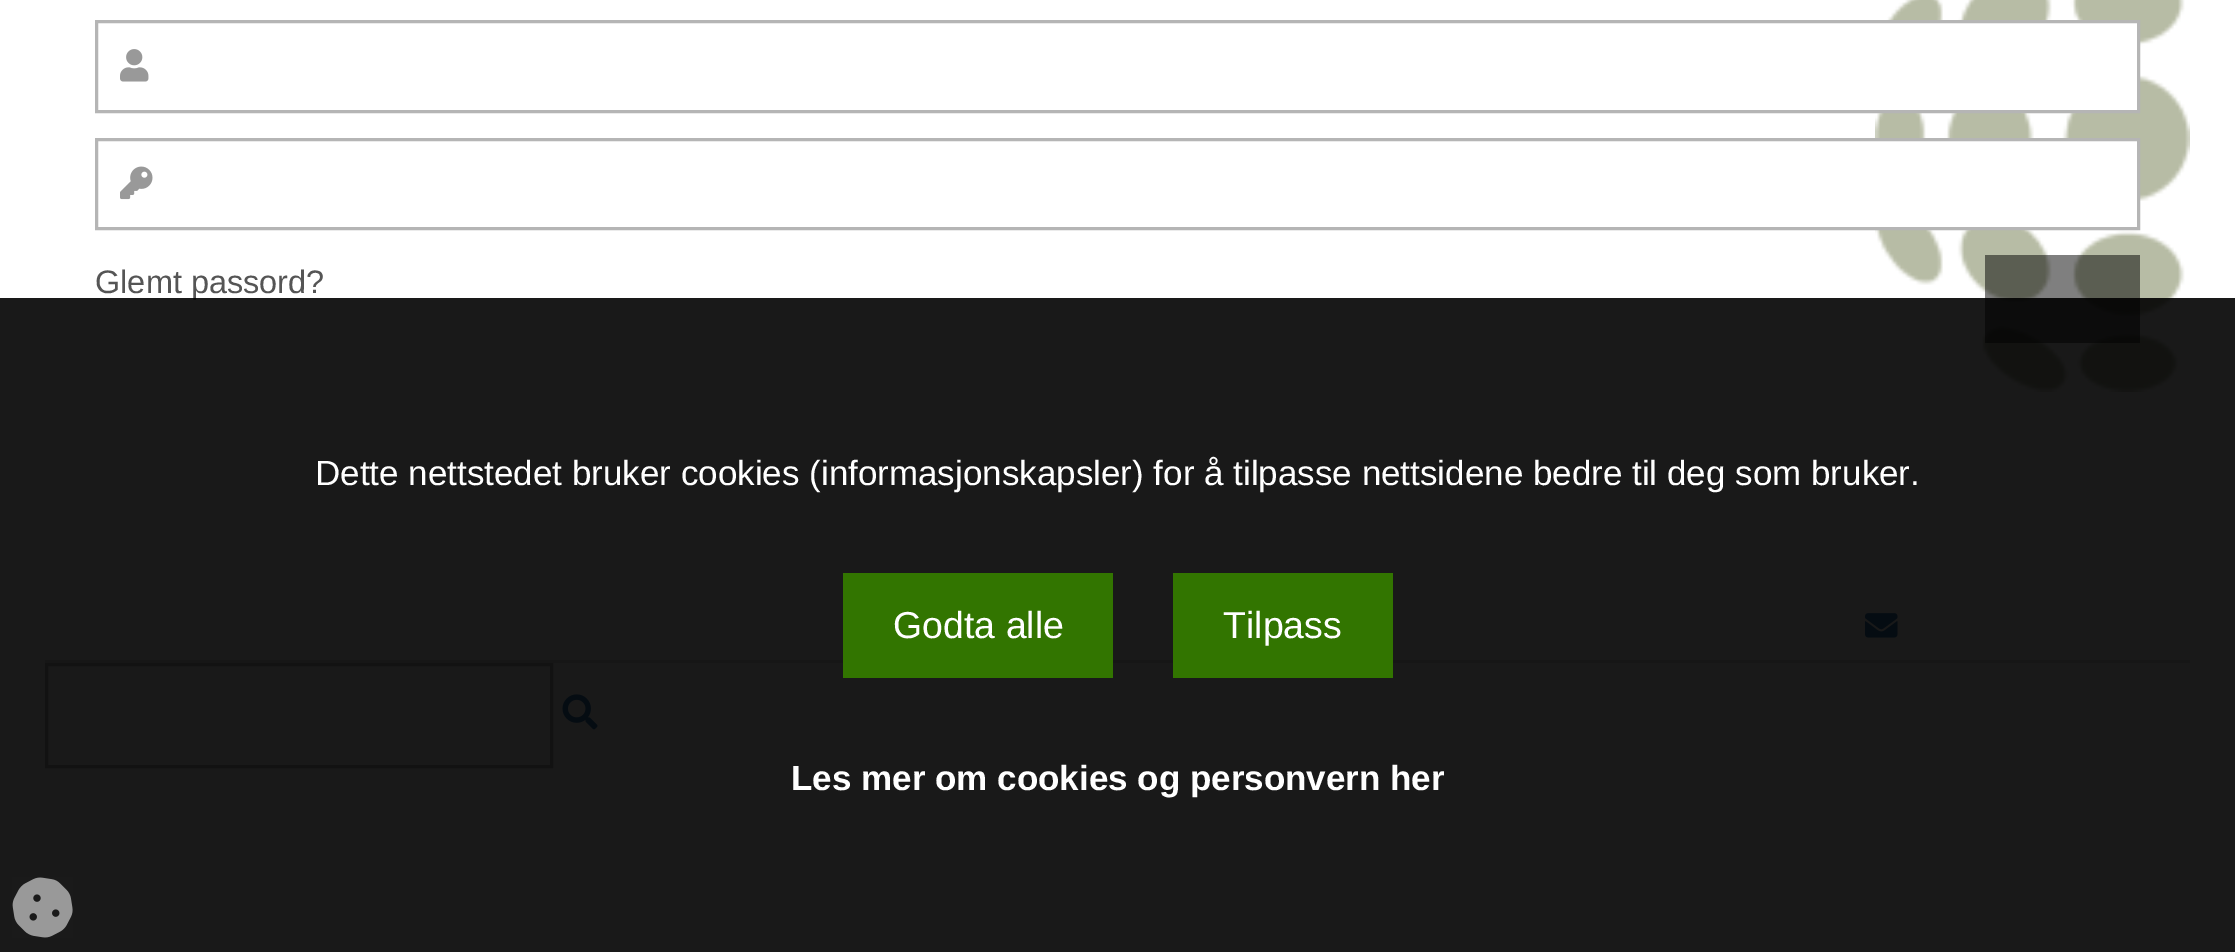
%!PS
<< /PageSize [2235 952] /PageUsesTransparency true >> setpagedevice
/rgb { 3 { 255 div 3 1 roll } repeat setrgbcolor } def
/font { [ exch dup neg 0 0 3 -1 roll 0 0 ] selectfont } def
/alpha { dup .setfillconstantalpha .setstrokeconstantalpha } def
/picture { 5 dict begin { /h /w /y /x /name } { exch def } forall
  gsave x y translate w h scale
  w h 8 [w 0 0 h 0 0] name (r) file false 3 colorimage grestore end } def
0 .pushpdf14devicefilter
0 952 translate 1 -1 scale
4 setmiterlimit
255 255 255 rgb
0 0 2235 952 rectfill
(img/1.rgb) 1875 0 315 392 picture
1875 23 262 87 rectfill
181 181 181 rgb
3 setlinewidth
96.5 21.5 2042 90 rectstroke
(img/2.rgb) 120 49 29 33 picture
255 255 255 rgb
1875 141 262 86 rectfill
181 181 181 rgb
96.5 139.5 2042 89 rectstroke
(img/3.rgb) 120 166 33 34 picture
0.5 alpha
0 0 0 rgb
1985 255 155 88 rectfill
1 alpha
(img/4.rgb) 1865 613 33 25 picture
224 224 224 rgb
45 660 2145 3 rectfill
181 181 181 rgb
46.5 664.5 505 102 rectstroke
(img/5.rgb) 562 694 36 36 picture
/LiberationSans-Regular 32.5 font
85 85 85 rgb
95 293 moveto (Glemt passord?) show
0.9 alpha
0 0 0 rgb
0 298 2235 654 rectfill
/LiberationSans-Regular 35 font
1 alpha
255 255 255 rgb
315 485 moveto (Dette nettstedet bruker cookies \(informasjonskapsler\) for å tilpasse nettsidene bedre til deg som bruker.) show
50 117 0 rgb
843 573 270 105 rectfill
/LiberationSans-Regular 37.5 font
255 255 255 rgb
893 638 moveto (Godta alle) show
50 117 0 rgb
1173 573 220 105 rectfill
255 255 255 rgb
1223 638 moveto (Tilpass) show
/LiberationSans-Bold 35 font
791 790 moveto (Les mer om cookies og personvern her) show
(img/6.rgb) 12 877 61 61 picture
.poppdf14devicefilter showpage
